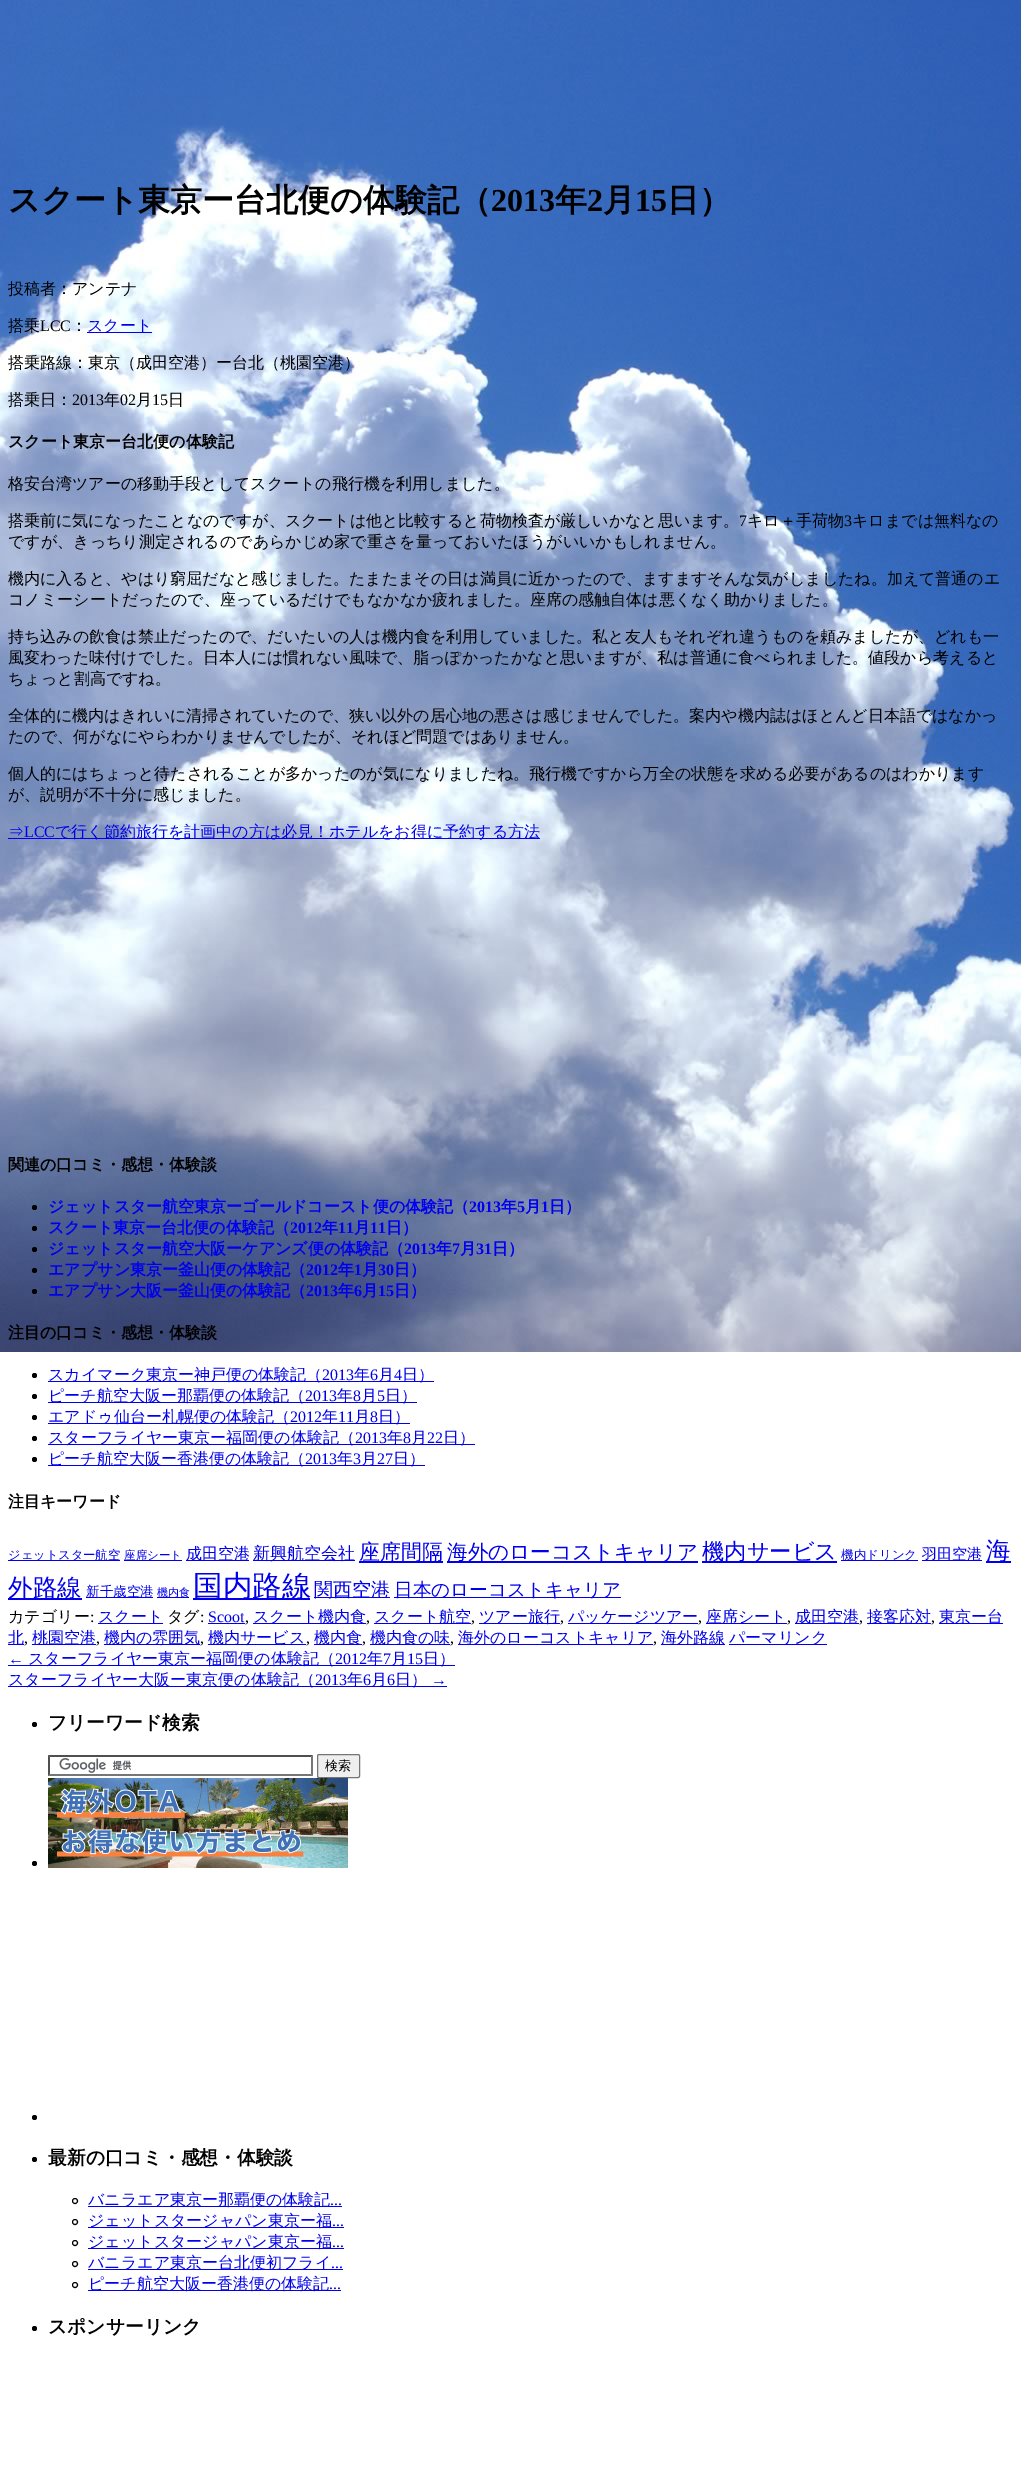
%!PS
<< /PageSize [1021 2492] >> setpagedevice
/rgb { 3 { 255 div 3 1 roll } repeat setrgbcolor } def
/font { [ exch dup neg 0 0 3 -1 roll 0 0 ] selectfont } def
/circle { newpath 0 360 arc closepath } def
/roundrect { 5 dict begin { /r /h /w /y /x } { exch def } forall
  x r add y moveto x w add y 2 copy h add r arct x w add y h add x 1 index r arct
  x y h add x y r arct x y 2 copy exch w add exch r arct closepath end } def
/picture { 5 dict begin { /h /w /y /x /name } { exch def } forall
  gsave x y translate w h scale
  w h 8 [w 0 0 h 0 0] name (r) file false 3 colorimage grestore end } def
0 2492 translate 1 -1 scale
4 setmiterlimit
255 255 255 rgb
0 0 1021 2492 rectfill
(img/1.rgb) 0 0 1021 1352 picture
0 0 238 rgb
87 332 65 1 rectfill
8 838 532 1 rectfill
0 0 0 rgb
34.5 1207.5 2.5 circle fill
34.5 1228.5 2.5 circle fill
34.5 1249.5 2.5 circle fill
34.5 1270.5 2.5 circle fill
34.5 1291.5 2.5 circle fill
34.5 1375.5 2.5 circle fill
0 0 238 rgb
48 1381 386 1 rectfill
0 0 0 rgb
34.5 1396.5 2.5 circle fill
0 0 238 rgb
48 1402 369 1 rectfill
0 0 0 rgb
34.5 1417.5 2.5 circle fill
0 0 238 rgb
48 1423 362 1 rectfill
0 0 0 rgb
34.5 1438.5 2.5 circle fill
0 0 238 rgb
48 1444 427 1 rectfill
0 0 0 rgb
34.5 1459.5 2.5 circle fill
[
  [48 1465 377 1 0 0 238]
  [8 1560 112 1 0 0 238]
  [124 1560 58 1 0 0 238]
  [186 1560 63 1 0 0 238]
  [253 1560 102 1 0 0 238]
  [359 1561 84 2 0 0 238]
  [447 1561 251 2 0 0 238]
  [702 1561 135 2 0 0 238]
  [841 1560 77 1 0 0 238]
  [922 1560 60 1 0 0 238]
  [986 1561 25 2 0 0 238]
  [8 1598 74 2 0 0 238]
  [86 1597 67 1 0 0 238]
  [157 1597 32 1 0 0 238]
  [193 1598 117 2 0 0 238]
  [314 1597 76 1 0 0 238]
  [394 1597 227 1 0 0 238]
  [98 1623 65 1 0 0 238]
  [208 1623 37 1 0 0 238]
  [253 1623 113 1 0 0 238]
  [374 1623 97 1 0 0 238]
  [479 1623 81 1 0 0 238]
  [568 1623 130 1 0 0 238]
  [706 1623 81 1 0 0 238]
  [795 1623 64 1 0 0 238]
  [867 1623 64 1 0 0 238]
  [939 1623 64 1 0 0 238]
  [8 1644 16 1 0 0 238]
  [32 1644 64 1 0 0 238]
  [104 1644 96 1 0 0 238]
  [208 1644 98 1 0 0 238]
  [314 1644 48 1 0 0 238]
  [370 1644 80 1 0 0 238]
  [458 1644 195 1 0 0 238]
  [661 1644 64 1 0 0 238]
  [729 1644 98 1 0 0 238]
  [8 1665 447 1 0 0 238]
  [8 1686 439 1 0 0 238]
] { aload pop rgb rectfill } forall
0 0 0 rgb
34.5 1724.5 2.5 circle fill
(img/2.rgb) 59 1758 73 15 picture
79 79 79 rgb
48 1755 moveto 313 1755 lineto 311 1757 lineto 50 1757 lineto closepath fill
118 118 118 rgb
313 1755 moveto 313 1776 lineto 311 1774 lineto 311 1757 lineto closepath fill
313 1776 moveto 48 1776 lineto 50 1774 lineto 311 1774 lineto closepath fill
79 79 79 rgb
48 1776 moveto 48 1755 lineto 50 1757 lineto 50 1774 lineto closepath fill
239 239 239 rgb
317.5 1754.5 42 23 1.5 roundrect gsave fill grestore
118 118 118 rgb
stroke
0 0 0 rgb
34.5 1863.5 2.5 circle fill
(img/3.rgb) 48 1778 300 90 picture
34.5 2117.5 2.5 circle fill
34.5 2159.5 2.5 circle fill
75 2201 2.5 circle stroke
0 0 238 rgb
88 2206 254 1 rectfill
0 0 0 rgb
75 2222 2.5 circle stroke
0 0 238 rgb
88 2227 256 1 rectfill
0 0 0 rgb
75 2243 2.5 circle stroke
0 0 238 rgb
88 2248 256 1 rectfill
0 0 0 rgb
75 2264 2.5 circle stroke
0 0 238 rgb
88 2269 255 1 rectfill
0 0 0 rgb
75 2285 2.5 circle stroke
0 0 238 rgb
88 2290 253 1 rectfill
0 0 0 rgb
34.5 2328.5 2.5 circle fill
/WenQuanYiZenHei-Bold 32 font
8 211 moveto (スクート東京ー台北便の体験記（) show
/LiberationSerif-Bold 32 font
491 211 moveto (2013) show
/WenQuanYiZenHei-Bold 32 font
555 211 moveto (年) show
/LiberationSerif-Bold 32 font
587 211 moveto (2) show
/WenQuanYiZenHei-Bold 32 font
603 211 moveto (月) show
/LiberationSerif-Bold 32 font
635 211 moveto (15) show
/WenQuanYiZenHei-Bold 32 font
667 211 moveto (日）) show
/WenQuanYiZenHei-Medium 16 font
8 294 moveto (投稿者：アンテナ) show
8 331 moveto (搭乗) show
/LiberationSerif-Regular 16 font
40 331 moveto (LCC) show
/WenQuanYiZenHei-Medium 16 font
71 331 moveto (：) show
0 0 238 rgb
87 331 moveto (スクート) show
0 0 0 rgb
8 368 moveto (搭乗路線：東京（成田空港）ー台北（桃園空港）) show
8 405 moveto (搭乗日：) show
/LiberationSerif-Regular 16 font
72 405 moveto (2013) show
/WenQuanYiZenHei-Medium 16 font
104 405 moveto (年) show
/LiberationSerif-Regular 16 font
120 405 moveto (02) show
/WenQuanYiZenHei-Medium 16 font
136 405 moveto (月) show
/LiberationSerif-Regular 16 font
152 405 moveto (15) show
/WenQuanYiZenHei-Medium 16 font
168 405 moveto (日) show
/WenQuanYiZenHei-Bold 16 font
8 447 moveto (スクート東京ー台北便の体験記) show
/WenQuanYiZenHei-Medium 16 font
8 489 moveto (格安台湾ツアーの移動手段としてスクートの飛行機を利用しました。) show
8 526 moveto (搭乗前に気になったことなのですが、スクートは他と比較すると荷物検査が厳しいかなと思います。) show
/LiberationSerif-Regular 16 font
739 526 moveto (7) show
/WenQuanYiZenHei-Medium 16 font
747 526 moveto (キロ＋手荷物) show
/LiberationSerif-Regular 16 font
844 526 moveto (3) show
/WenQuanYiZenHei-Medium 16 font
[
  [(キロまでは無料なの) 852 526]
  [(ですが、きっちり測定されるのであらかじめ家で重さを量っておいたほうがいいかもしれません。) 8 547]
  [(機内に入ると、やはり窮屈だなと感じました。たまたまその日は満員に近かったので、ますますそんな気がしましたね。加えて普通のエ) 8 584]
  [(コノミーシートだったので、座っているだけでもなかなか疲れました。座席の感触自体は悪くなく助かりました。) 8 605]
  [(持ち込みの飲食は禁止だったので、だいたいの人は機内食を利用していました。私と友人もそれぞれ違うものを頼みましたが、どれも一) 8 642]
  [(風変わった味付けでした。日本人には慣れない風味で、脂っぽかったかなと思いますが、私は普通に食べられました。値段から考えると) 8 663]
  [(ちょっと割高ですね。) 8 684]
  [(全体的に機内はきれいに清掃されていたので、狭い以外の居心地の悪さは感じませんでした。案内や機内誌はほとんど日本語ではなかっ) 8 721]
  [(たので、何がなにやらわかりませんでしたが、それほど問題ではありません。) 8 742]
  [(個人的にはちょっと待たされることが多かったのが気になりましたね。飛行機ですから万全の状態を求める必要があるのはわかります) 8 779]
  [(が、説明が不十分に感じました。) 8 800]
] { aload pop moveto show } forall
0 0 238 rgb
8 837 moveto (⇒) show
/LiberationSerif-Regular 16 font
24 837 moveto (LCC) show
/WenQuanYiZenHei-Medium 16 font
55 837 moveto (で行く節約旅行を計画中の方は必見！ホテルをお得に予約する方法) show
/WenQuanYiZenHei-Bold 16 font
0 0 0 rgb
8 1170 moveto (関連の口コミ・感想・体験談) show
0 0 238 rgb
48 1212 moveto (ジェットスター航空東京ーゴールドコースト便の体験記（) show
/LiberationSerif-Bold 16 font
469 1212 moveto (2013) show
/WenQuanYiZenHei-Bold 16 font
501 1212 moveto (年) show
/LiberationSerif-Bold 16 font
517 1212 moveto (5) show
/WenQuanYiZenHei-Bold 16 font
525 1212 moveto (月) show
/LiberationSerif-Bold 16 font
541 1212 moveto (1) show
/WenQuanYiZenHei-Bold 16 font
549 1212 moveto (日）) show
48 1233 moveto (スクート東京ー台北便の体験記（) show
/LiberationSerif-Bold 16 font
290 1233 moveto (2012) show
/WenQuanYiZenHei-Bold 16 font
322 1233 moveto (年) show
/LiberationSerif-Bold 16 font
338 1233 moveto (11) show
/WenQuanYiZenHei-Bold 16 font
354 1233 moveto (月) show
/LiberationSerif-Bold 16 font
370 1233 moveto (11) show
/WenQuanYiZenHei-Bold 16 font
386 1233 moveto (日）) show
48 1254 moveto (ジェットスター航空大阪ーケアンズ便の体験記（) show
/LiberationSerif-Bold 16 font
404 1254 moveto (2013) show
/WenQuanYiZenHei-Bold 16 font
436 1254 moveto (年) show
/LiberationSerif-Bold 16 font
452 1254 moveto (7) show
/WenQuanYiZenHei-Bold 16 font
460 1254 moveto (月) show
/LiberationSerif-Bold 16 font
476 1254 moveto (31) show
/WenQuanYiZenHei-Bold 16 font
492 1254 moveto (日）) show
48 1275 moveto (エアプサン東京ー釜山便の体験記（) show
/LiberationSerif-Bold 16 font
306 1275 moveto (2012) show
/WenQuanYiZenHei-Bold 16 font
338 1275 moveto (年) show
/LiberationSerif-Bold 16 font
354 1275 moveto (1) show
/WenQuanYiZenHei-Bold 16 font
362 1275 moveto (月) show
/LiberationSerif-Bold 16 font
378 1275 moveto (30) show
/WenQuanYiZenHei-Bold 16 font
394 1275 moveto (日）) show
48 1296 moveto (エアプサン大阪ー釜山便の体験記（) show
/LiberationSerif-Bold 16 font
306 1296 moveto (2013) show
/WenQuanYiZenHei-Bold 16 font
338 1296 moveto (年) show
/LiberationSerif-Bold 16 font
354 1296 moveto (6) show
/WenQuanYiZenHei-Bold 16 font
362 1296 moveto (月) show
/LiberationSerif-Bold 16 font
378 1296 moveto (15) show
/WenQuanYiZenHei-Bold 16 font
394 1296 moveto (日）) show
0 0 0 rgb
8 1338 moveto (注目の口コミ・感想・体験談) show
/WenQuanYiZenHei-Medium 16 font
0 0 238 rgb
48 1380 moveto (スカイマーク東京ー神戸便の体験記（) show
/LiberationSerif-Regular 16 font
322 1380 moveto (2013) show
/WenQuanYiZenHei-Medium 16 font
354 1380 moveto (年) show
/LiberationSerif-Regular 16 font
370 1380 moveto (6) show
/WenQuanYiZenHei-Medium 16 font
378 1380 moveto (月) show
/LiberationSerif-Regular 16 font
394 1380 moveto (4) show
/WenQuanYiZenHei-Medium 16 font
402 1380 moveto (日）) show
48 1401 moveto (ピーチ航空大阪ー那覇便の体験記（) show
/LiberationSerif-Regular 16 font
305 1401 moveto (2013) show
/WenQuanYiZenHei-Medium 16 font
337 1401 moveto (年) show
/LiberationSerif-Regular 16 font
353 1401 moveto (8) show
/WenQuanYiZenHei-Medium 16 font
361 1401 moveto (月) show
/LiberationSerif-Regular 16 font
377 1401 moveto (5) show
/WenQuanYiZenHei-Medium 16 font
385 1401 moveto (日）) show
48 1422 moveto (エアドゥ仙台ー札幌便の体験記（) show
/LiberationSerif-Regular 16 font
290 1422 moveto (2012) show
/WenQuanYiZenHei-Medium 16 font
322 1422 moveto (年) show
/LiberationSerif-Regular 16 font
338 1422 moveto (11) show
/WenQuanYiZenHei-Medium 16 font
354 1422 moveto (月) show
/LiberationSerif-Regular 16 font
370 1422 moveto (8) show
/WenQuanYiZenHei-Medium 16 font
378 1422 moveto (日）) show
48 1443 moveto (スターフライヤー東京ー福岡便の体験記（) show
/LiberationSerif-Regular 16 font
355 1443 moveto (2013) show
/WenQuanYiZenHei-Medium 16 font
387 1443 moveto (年) show
/LiberationSerif-Regular 16 font
403 1443 moveto (8) show
/WenQuanYiZenHei-Medium 16 font
411 1443 moveto (月) show
/LiberationSerif-Regular 16 font
427 1443 moveto (22) show
/WenQuanYiZenHei-Medium 16 font
443 1443 moveto (日）) show
48 1464 moveto (ピーチ航空大阪ー香港便の体験記（) show
/LiberationSerif-Regular 16 font
305 1464 moveto (2013) show
/WenQuanYiZenHei-Medium 16 font
337 1464 moveto (年) show
/LiberationSerif-Regular 16 font
353 1464 moveto (3) show
/WenQuanYiZenHei-Medium 16 font
361 1464 moveto (月) show
/LiberationSerif-Regular 16 font
377 1464 moveto (27) show
/WenQuanYiZenHei-Medium 16 font
393 1464 moveto (日）) show
/WenQuanYiZenHei-Bold 16 font
0 0 0 rgb
8 1507 moveto (注目キーワード) show
/WenQuanYiZenHei-Medium 12.25 font
0 0 238 rgb
8 1559 moveto (ジェットスター航空) show
/WenQuanYiZenHei-Medium 11.5 font
124 1559 moveto (座席シート) show
/WenQuanYiZenHei-Medium 16 font
186 1559 moveto (成田空港) show
/WenQuanYiZenHei-Medium 17 font
253 1559 moveto (新興航空会社) show
/WenQuanYiZenHei-Medium 21 font
359 1559 moveto (座席間隔) show
/WenQuanYiZenHei-Medium 20.6 font
447 1559 moveto (海外のローコストキャリア) show
/WenQuanYiZenHei-Medium 22.25 font
702 1559 moveto (機内サービス) show
/WenQuanYiZenHei-Medium 12.5 font
841 1559 moveto (機内ドリンク) show
/WenQuanYiZenHei-Medium 15 font
922 1559 moveto (羽田空港) show
/WenQuanYiZenHei-Medium 24.5 font
986 1559 moveto (海) show
8 1596 moveto (外路線) show
/WenQuanYiZenHei-Medium 13.5 font
86 1596 moveto (新千歳空港) show
/WenQuanYiZenHei-Medium 11 font
157 1596 moveto (機内食) show
/WenQuanYiZenHei-Medium 29.5 font
193 1596 moveto (国内路線) show
/WenQuanYiZenHei-Medium 19 font
314 1596 moveto (関西空港) show
/WenQuanYiZenHei-Medium 18.6 font
394 1596 moveto (日本のローコストキャリア) show
/WenQuanYiZenHei-Medium 16 font
0 0 0 rgb
8 1622 moveto (カテゴリー) show
/LiberationSerif-Regular 16 font
90 1622 moveto (:) show
/WenQuanYiZenHei-Medium 16 font
0 0 238 rgb
98 1622 moveto (スクート) show
0 0 0 rgb
167 1622 moveto (タグ) show
/LiberationSerif-Regular 16 font
200 1622 moveto (:) show
0 0 238 rgb
208 1622 moveto (Scoot) show
0 0 0 rgb
245 1622 moveto (,) show
/WenQuanYiZenHei-Medium 16 font
0 0 238 rgb
253 1622 moveto (スクート機内食) show
/LiberationSerif-Regular 16 font
0 0 0 rgb
366 1622 moveto (,) show
/WenQuanYiZenHei-Medium 16 font
0 0 238 rgb
374 1622 moveto (スクート航空) show
/LiberationSerif-Regular 16 font
0 0 0 rgb
471 1622 moveto (,) show
/WenQuanYiZenHei-Medium 16 font
0 0 238 rgb
479 1622 moveto (ツアー旅行) show
/LiberationSerif-Regular 16 font
0 0 0 rgb
560 1622 moveto (,) show
/WenQuanYiZenHei-Medium 16 font
0 0 238 rgb
568 1622 moveto (パッケージツアー) show
/LiberationSerif-Regular 16 font
0 0 0 rgb
698 1622 moveto (,) show
/WenQuanYiZenHei-Medium 16 font
0 0 238 rgb
706 1622 moveto (座席シート) show
/LiberationSerif-Regular 16 font
0 0 0 rgb
787 1622 moveto (,) show
/WenQuanYiZenHei-Medium 16 font
0 0 238 rgb
795 1622 moveto (成田空港) show
/LiberationSerif-Regular 16 font
0 0 0 rgb
859 1622 moveto (,) show
/WenQuanYiZenHei-Medium 16 font
0 0 238 rgb
867 1622 moveto (接客応対) show
/LiberationSerif-Regular 16 font
0 0 0 rgb
931 1622 moveto (,) show
/WenQuanYiZenHei-Medium 16 font
0 0 238 rgb
939 1622 moveto (東京ー台) show
8 1643 moveto (北) show
/LiberationSerif-Regular 16 font
0 0 0 rgb
24 1643 moveto (,) show
/WenQuanYiZenHei-Medium 16 font
0 0 238 rgb
32 1643 moveto (桃園空港) show
/LiberationSerif-Regular 16 font
0 0 0 rgb
96 1643 moveto (,) show
/WenQuanYiZenHei-Medium 16 font
0 0 238 rgb
104 1643 moveto (機内の雰囲気) show
/LiberationSerif-Regular 16 font
0 0 0 rgb
200 1643 moveto (,) show
/WenQuanYiZenHei-Medium 16 font
0 0 238 rgb
208 1643 moveto (機内サービス) show
/LiberationSerif-Regular 16 font
0 0 0 rgb
306 1643 moveto (,) show
/WenQuanYiZenHei-Medium 16 font
0 0 238 rgb
314 1643 moveto (機内食) show
/LiberationSerif-Regular 16 font
0 0 0 rgb
362 1643 moveto (,) show
/WenQuanYiZenHei-Medium 16 font
0 0 238 rgb
370 1643 moveto (機内食の味) show
/LiberationSerif-Regular 16 font
0 0 0 rgb
450 1643 moveto (,) show
/WenQuanYiZenHei-Medium 16 font
0 0 238 rgb
458 1643 moveto (海外のローコストキャリア) show
/LiberationSerif-Regular 16 font
0 0 0 rgb
653 1643 moveto (,) show
/WenQuanYiZenHei-Medium 16 font
0 0 238 rgb
661 1643 moveto (海外路線) show
729 1643 moveto (パーマリンク) show
/LiberationSerif-Regular 16 font
8 1664 moveto (←) show
/WenQuanYiZenHei-Medium 16 font
28 1664 moveto (スターフライヤー東京ー福岡便の体験記（) show
/LiberationSerif-Regular 16 font
335 1664 moveto (2012) show
/WenQuanYiZenHei-Medium 16 font
367 1664 moveto (年) show
/LiberationSerif-Regular 16 font
383 1664 moveto (7) show
/WenQuanYiZenHei-Medium 16 font
391 1664 moveto (月) show
/LiberationSerif-Regular 16 font
407 1664 moveto (15) show
/WenQuanYiZenHei-Medium 16 font
423 1664 moveto (日）) show
8 1685 moveto (スターフライヤー大阪ー東京便の体験記（) show
/LiberationSerif-Regular 16 font
315 1685 moveto (2013) show
/WenQuanYiZenHei-Medium 16 font
347 1685 moveto (年) show
/LiberationSerif-Regular 16 font
363 1685 moveto (6) show
/WenQuanYiZenHei-Medium 16 font
371 1685 moveto (月) show
/LiberationSerif-Regular 16 font
387 1685 moveto (6) show
/WenQuanYiZenHei-Medium 16 font
395 1685 moveto (日）) show
/LiberationSerif-Regular 16 font
431 1685 moveto (→) show
/WenQuanYiZenHei-Bold 18.75 font
0 0 0 rgb
48 1729 moveto (フリーワード検索) show
/WenQuanYiZenHei-Medium 13 font
325 1770 moveto (検索) show
/WenQuanYiZenHei-Bold 18.75 font
48 2164 moveto (最新の口コミ・感想・体験談) show
/WenQuanYiZenHei-Medium 16 font
0 0 238 rgb
88 2205 moveto (バニラエア東京ー那覇便の体験記) show
/LiberationSerif-Regular 16 font
330 2205 moveto (...) show
/WenQuanYiZenHei-Medium 16 font
88 2226 moveto (ジェットスタージャパン東京ー福) show
/LiberationSerif-Regular 16 font
332 2226 moveto (...) show
/WenQuanYiZenHei-Medium 16 font
88 2247 moveto (ジェットスタージャパン東京ー福) show
/LiberationSerif-Regular 16 font
332 2247 moveto (...) show
/WenQuanYiZenHei-Medium 16 font
88 2268 moveto (バニラエア東京ー台北便初フライ) show
/LiberationSerif-Regular 16 font
331 2268 moveto (...) show
/WenQuanYiZenHei-Medium 16 font
88 2289 moveto (ピーチ航空大阪ー香港便の体験記) show
/LiberationSerif-Regular 16 font
329 2289 moveto (...) show
/WenQuanYiZenHei-Bold 18.75 font
0 0 0 rgb
48 2333 moveto (スポンサーリンク) show
showpage
